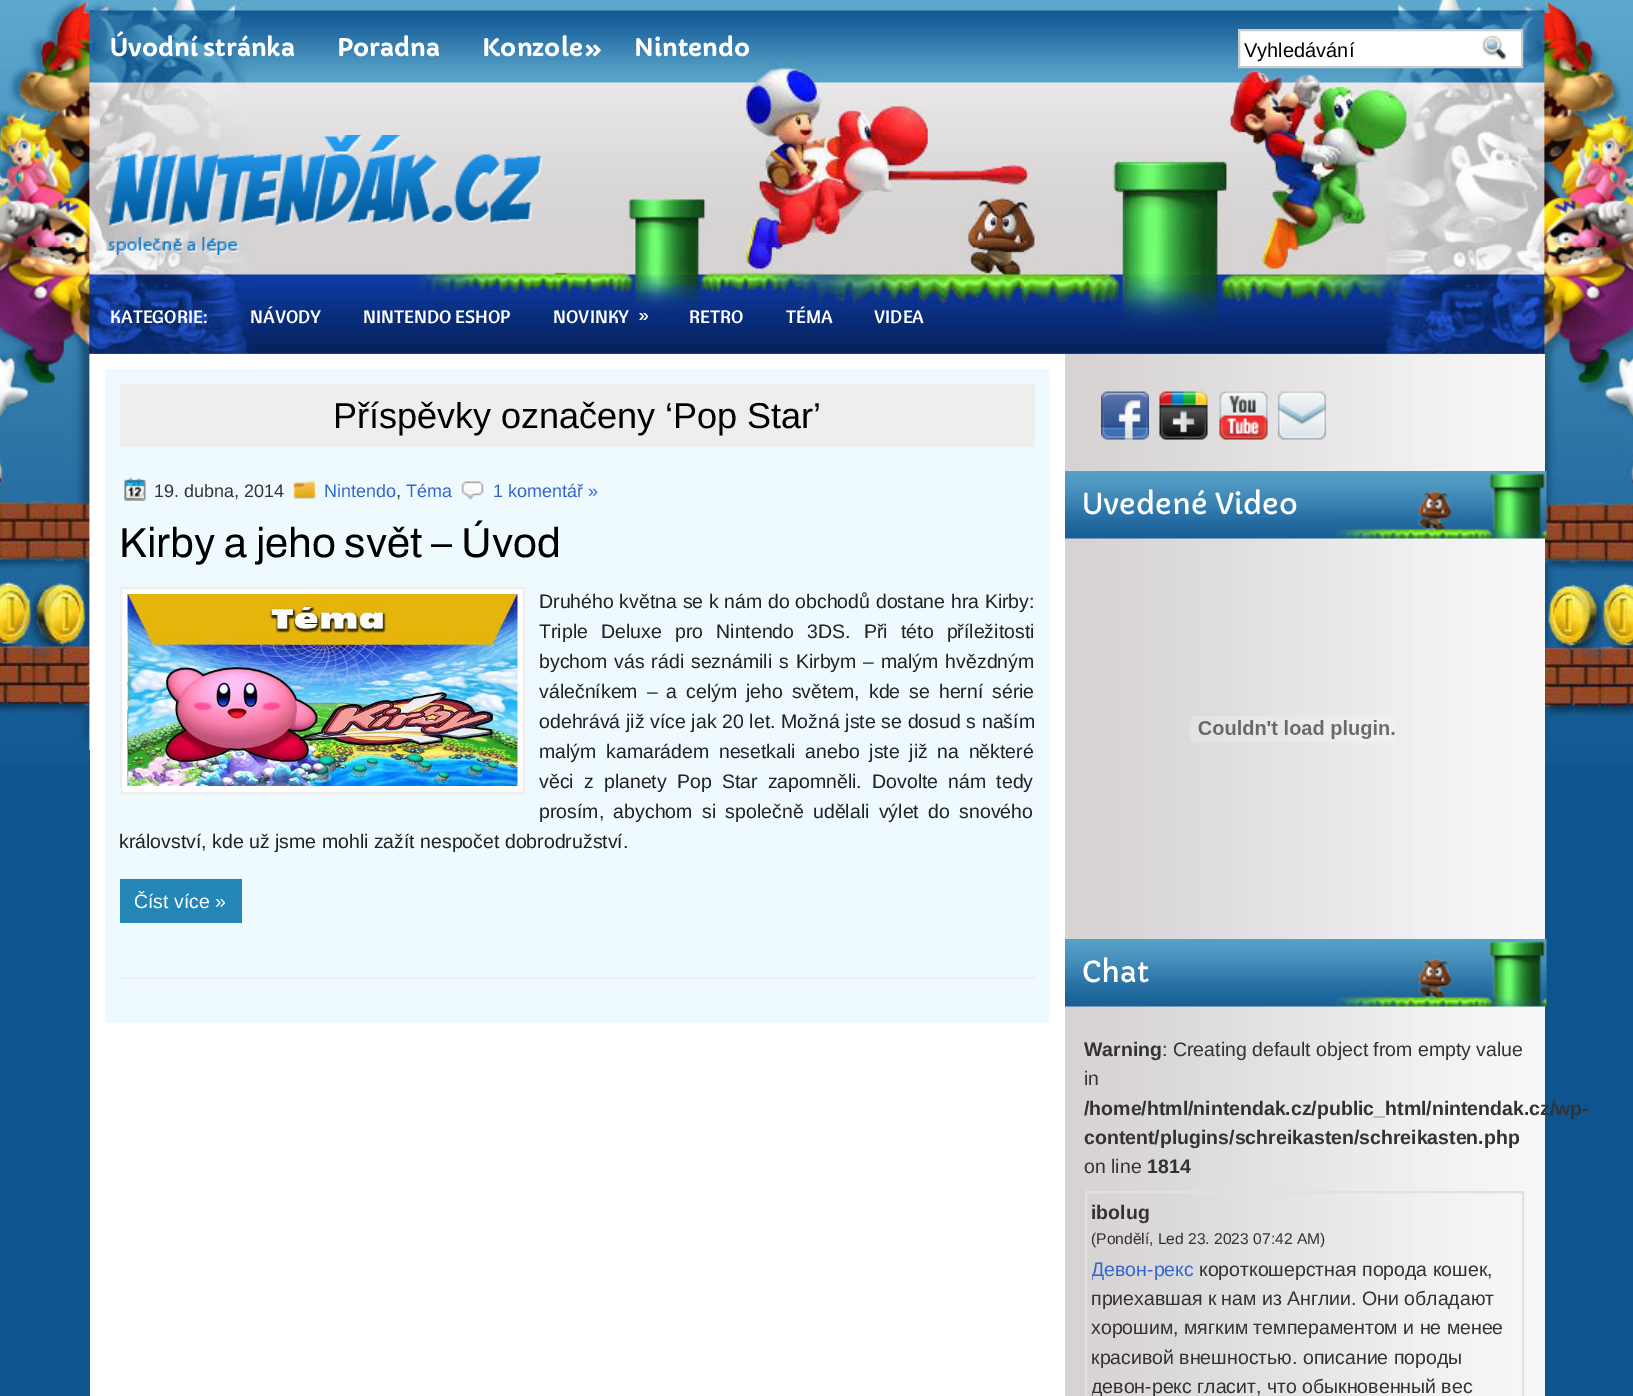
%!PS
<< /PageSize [1633 1396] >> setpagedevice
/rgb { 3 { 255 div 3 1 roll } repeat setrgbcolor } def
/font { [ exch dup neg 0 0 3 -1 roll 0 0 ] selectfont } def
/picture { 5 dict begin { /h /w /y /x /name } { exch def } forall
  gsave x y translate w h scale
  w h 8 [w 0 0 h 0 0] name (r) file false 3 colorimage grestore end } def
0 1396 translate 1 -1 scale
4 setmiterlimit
14 84 143 rgb
0 0 1633 1396 rectfill
(img/1.rgb) 0 750 1633 15 picture
(img/2.rgb) 0 0 1633 248 picture
(img/3.rgb) 0 247 1633 503 picture
255 255 255 rgb
1239 30 moveto 1522 30 lineto 1522 67 lineto 1239 67 lineto closepath gsave fill grestore
204 204 204 rgb
2 setlinewidth
stroke
(img/4.rgb) 1482 36 24 24 picture
(img/5.rgb) 107 135 436 120 picture
255 255 255 rgb
90 354 975 1042 rectfill
(img/6.rgb) 1065 354 480 1042 picture
238 250 254 rgb
105 369 945 654 rectfill
238 238 238 rgb
120 384 915 63 rectfill
(img/7.rgb) 124 477 22 24 picture
(img/8.rgb) 292 480 24 20 picture
(img/9.rgb) 461 481 23 19 picture
120 977 915 2 rectfill
255 255 255 rgb
121 588 moveto 524 588 lineto 524 793 lineto 121 793 lineto closepath gsave fill grestore
238 238 238 rgb
stroke
(img/10.rgb) 127 594 391 192 picture
36 134 183 rgb
120 879 122 44 rectfill
(img/11.rgb) 1101 391 48 49 picture
(img/12.rgb) 1159 391 49 49 picture
(img/13.rgb) 1219 391 49 49 picture
(img/14.rgb) 1278 391 48 49 picture
(img/15.rgb) 1065 471 482 68 picture
(img/16.rgb) 1190 716 205 26 picture
(img/17.rgb) 1065 939 482 68 picture
225 225 225 rgb
1086 1192 437 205 rectstroke
/Capriola-Bold 24 font
255 255 255 rgb
[
  [(Úvodní stránka) 110 56]
  [(Poradna) 337 56]
  [(Konzole) 482 56]
  [(») 584 57]
  [(Nintendo) 634 56]
] { aload pop moveto show } forall
/LiberationSans-Regular 20 font
0 0 0 rgb
1244 57 moveto (Vyhledávání) show
/CantoraOne-Regular 18 font
255 255 255 rgb
[
  [(KATEGORIE:) 110 323]
  [(NÁVODY) 250 323]
  [(NINTENDO ESHOP) 363 323]
  [(NOVINKY) 553 323]
  [(») 638 321]
  [(RETRO) 689 323]
  [(TÉMA) 786 323]
  [(VIDEA) 874 323]
] { aload pop moveto show } forall
/LiberationSans-Regular 36 font
0 0 0 rgb
333 428 moveto (Příspěvky označeny ‘Pop Star’) show
/LiberationSans-Regular 18 font
51 51 51 rgb
154 497 moveto (19. dubna, 2014) show
51 102 204 rgb
324 497 moveto (Nintendo) show
51 51 51 rgb
396 497 moveto (,) show
51 102 204 rgb
406 497 moveto (Téma) show
493 497 moveto (1 komentář ») show
/Archivo-Regular 42 font
0 0 0 rgb
119 557 moveto (Kirby a jeho svět – Úvod) show
/LiberationSans-Regular 19.5 font
34 34 34 rgb
539 608 moveto 0.25 0 32 (Druhého května se k nám do obchodů dostane hra Kirby:) widthshow
539 638 moveto 7.75 0 32 (Triple Deluxe pro Nintendo 3DS. Při této příležitosti) widthshow
539 668 moveto 1.5 0 32 (bychom vás rádi seznámili s Kirbym – malým hvězdným) widthshow
539 698 moveto 3.5 0 32 (válečníkem – a celým jeho světem, kde se herní série) widthshow
539 728 moveto 0.25 0 32 (odehrává již více jak 20 let. Možná jste se dosud s naším) widthshow
539 758 moveto 4.25 0 32 (malým kamarádem nesetkali anebo jste již na některé) widthshow
539 788 moveto 4.75 0 32 (věci z planety Pop Star zapomněli. Dovolte nám tedy) widthshow
539 818 moveto 4 0 32 (prosím, abychom si společně udělali výlet do snového) widthshow
119 848 moveto (království, kde už jsme mohli zažít nespočet dobrodružství.) show
255 255 255 rgb
134 908 moveto (Číst více ») show
/Capriola-Regular 28.5 font
1082 514 moveto (Uvedené Video) show
1082 982 moveto (Chat) show
/LiberationSans-Bold 19.5 font
51 51 51 rgb
1084 1056 moveto (Warning) show
/LiberationSans-Regular 19.5 font
1162 1056 moveto (: Creating default object from empty value) show
1084 1085 moveto (in) show
/LiberationSans-Bold 19.5 font
1084 1115 moveto (/home/html/nintendak.cz/public_html/nintendak.cz/wp-) show
1084 1144 moveto (content/plugins/schreikasten/schreikasten.php) show
/LiberationSans-Regular 19.5 font
1084 1173 moveto (on line) show
/LiberationSans-Bold 19.5 font
1147 1173 moveto (1814) show
1091 1219 moveto (ibolug) show
/LiberationSans-Regular 15.6 font
1091 1244 moveto (\(Pondělí, Led 23. 2023 07:42 AM\)) show
gsave
1092 1256 425 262 rectclip
/LiberationSans-Regular 19.5 font
51 102 204 rgb
1091 1276 moveto (Девон-рекс) show
grestore
/LiberationSans-Regular 19.5 font
[
  [(короткошерстная порода кошек,) 1199 1276]
  [(приехавшая к нам из Англии. Они обладают) 1091 1305]
  [(хорошим, мягким темпераментом и не менее) 1091 1334]
  [(красивой внешностью. описание породы) 1091 1364]
] { aload pop moveto show } forall
gsave
1092 1256 425 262 rectclip
1091 1393 moveto (девон-рекс гласит, что обыкновенный вес) show
grestore
showpage
